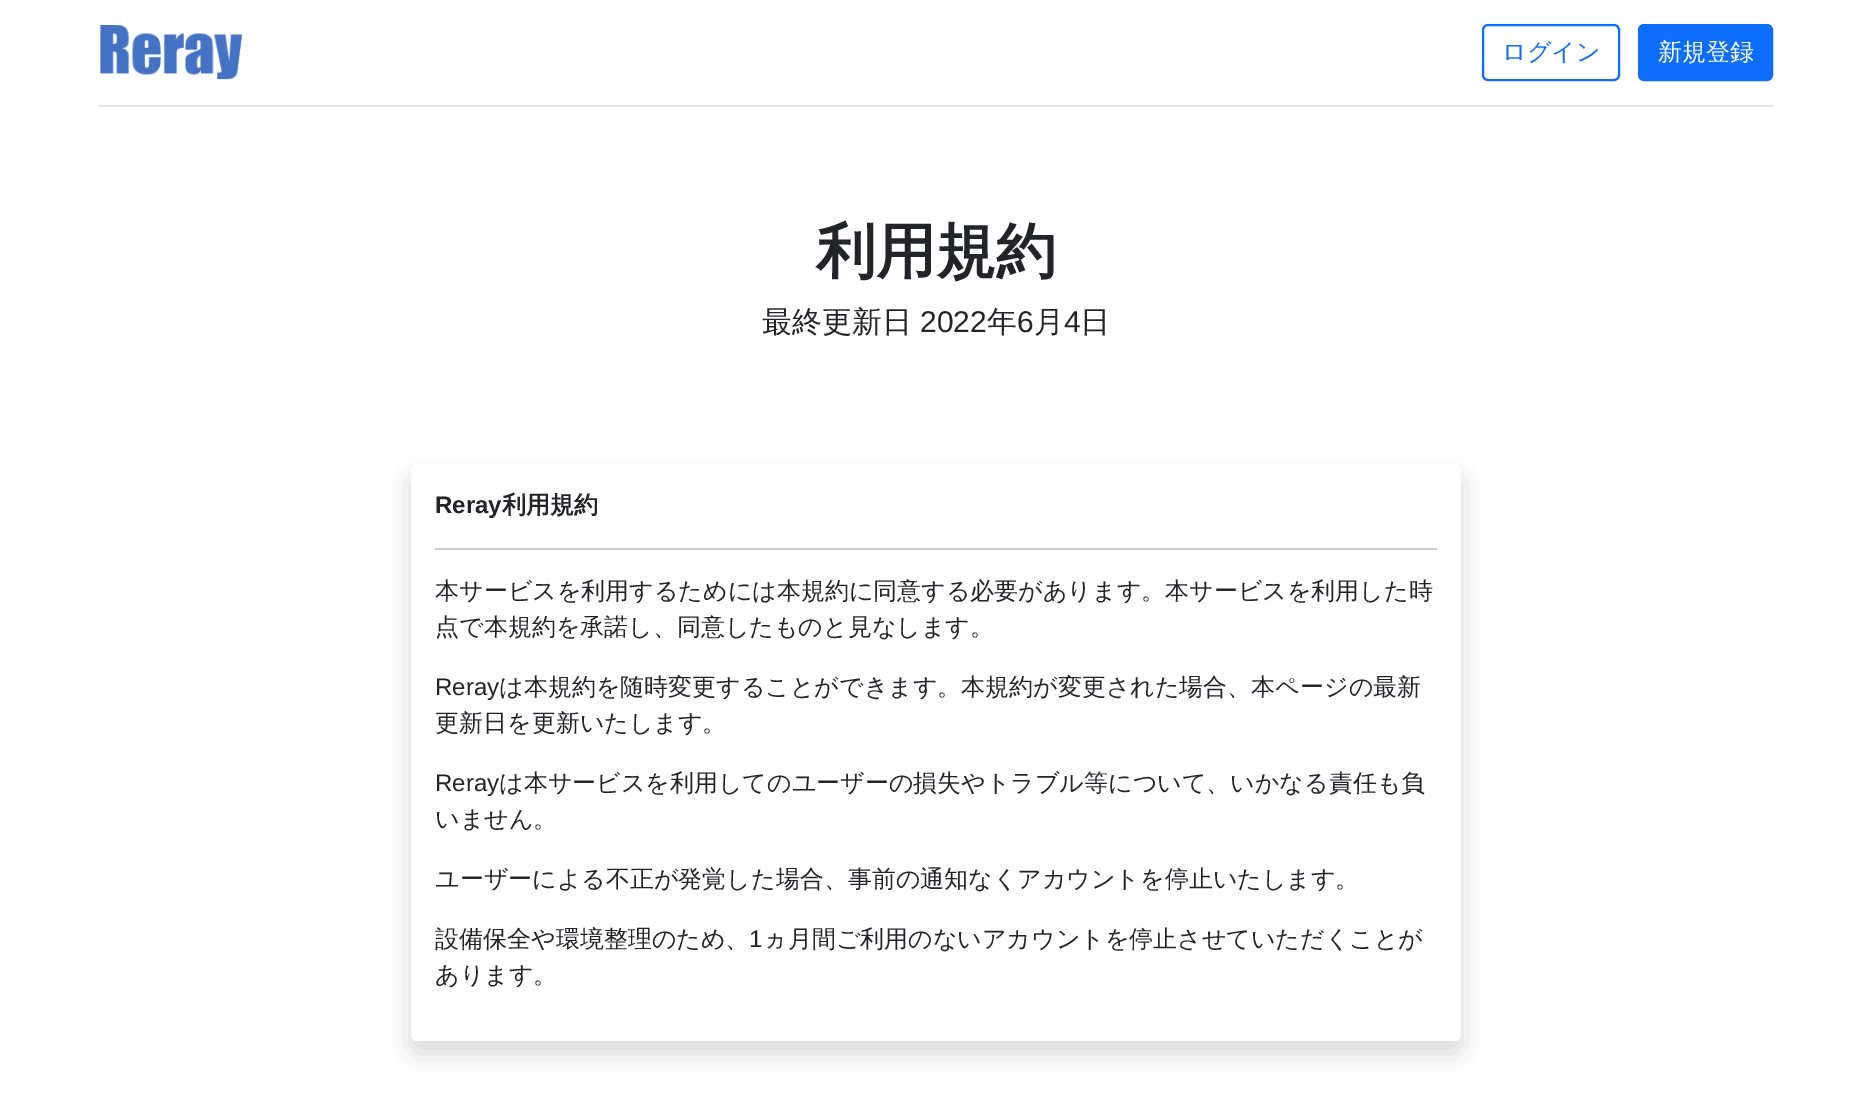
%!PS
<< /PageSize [1872 1106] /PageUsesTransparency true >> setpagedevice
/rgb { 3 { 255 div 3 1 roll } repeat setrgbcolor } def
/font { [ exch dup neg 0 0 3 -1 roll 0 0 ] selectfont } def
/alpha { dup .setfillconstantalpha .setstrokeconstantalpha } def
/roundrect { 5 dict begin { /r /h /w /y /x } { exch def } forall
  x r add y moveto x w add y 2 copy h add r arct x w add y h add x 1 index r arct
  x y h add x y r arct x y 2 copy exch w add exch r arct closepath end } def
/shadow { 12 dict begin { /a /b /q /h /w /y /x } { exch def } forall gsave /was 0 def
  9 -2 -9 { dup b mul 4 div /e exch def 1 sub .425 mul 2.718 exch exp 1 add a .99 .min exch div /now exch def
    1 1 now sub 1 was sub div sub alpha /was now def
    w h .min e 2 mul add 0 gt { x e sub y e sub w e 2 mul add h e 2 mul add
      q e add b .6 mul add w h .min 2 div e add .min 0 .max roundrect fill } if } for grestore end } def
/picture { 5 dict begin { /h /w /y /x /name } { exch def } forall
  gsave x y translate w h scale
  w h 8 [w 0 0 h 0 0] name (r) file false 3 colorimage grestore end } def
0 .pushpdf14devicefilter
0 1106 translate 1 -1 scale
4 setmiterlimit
255 255 255 rgb
0 0 1872 1106 rectfill
222 226 230 rgb
99 105 1674 2 rectfill
(img/1.rgb) 100 25 143 55 picture
13 110 253 rgb
2 setlinewidth
1483 25 136 55 5 roundrect stroke
1639 25 133 55 5 roundrect gsave fill grestore
stroke
0 0 0 rgb
411 476 1050 577 6 12 0.15 shadow
255 255 255 rgb
411 464 1050 577 6 roundrect fill
200 201 202 rgb
435 548 1002 2 rectfill
/WenQuanYiZenHei-Medium 24 font
13 110 253 rgb
1502 60 moveto (ログイン) show
255 255 255 rgb
1658 60 moveto (新規登録) show
/WenQuanYiZenHei-Bold 60 font
33 37 41 rgb
816 272 moveto (利用規約) show
/WenQuanYiZenHei-Medium 30 font
762 332 moveto (最終更新日) show
/LiberationSans-Regular 30 font
920 332 moveto (2022) show
/WenQuanYiZenHei-Medium 30 font
987 332 moveto (年) show
/LiberationSans-Regular 30 font
1017 332 moveto (6) show
/WenQuanYiZenHei-Medium 30 font
1034 332 moveto (月) show
/LiberationSans-Regular 30 font
1064 332 moveto (4) show
/WenQuanYiZenHei-Medium 30 font
1080 332 moveto (日) show
/LiberationSans-Bold 24 font
435 513 moveto (Reray) show
/WenQuanYiZenHei-Bold 24 font
502 513 moveto (利用規約) show
/WenQuanYiZenHei-Medium 24 font
435 599 moveto (本サービスを利用するためには本規約に同意する必要があります。本サービスを利用した時) show
435 635 moveto (点で本規約を承諾し、同意したものと見なします。) show
/LiberationSans-Regular 24 font
435 695 moveto (Reray) show
/WenQuanYiZenHei-Medium 24 font
499 695 moveto (は本規約を随時変更することができます。本規約が変更された場合、本ページの最新) show
435 731 moveto (更新日を更新いたします。) show
/LiberationSans-Regular 24 font
435 791 moveto (Reray) show
/WenQuanYiZenHei-Medium 24 font
[
  [(は本サービスを利用してのユーザーの損失やトラブル等について、いかなる責任も負) 499 791]
  [(いません。) 435 827]
  [(ユーザーによる不正が発覚した場合、事前の通知なくアカウントを停止いたします。) 435 887]
  [(設備保全や環境整理のため、) 435 947]
] { aload pop moveto show } forall
/LiberationSans-Regular 24 font
749 947 moveto (1) show
/WenQuanYiZenHei-Medium 24 font
763 947 moveto (ヵ月間ご利用のないアカウントを停止させていただくことが) show
435 983 moveto (あります。) show
.poppdf14devicefilter showpage
